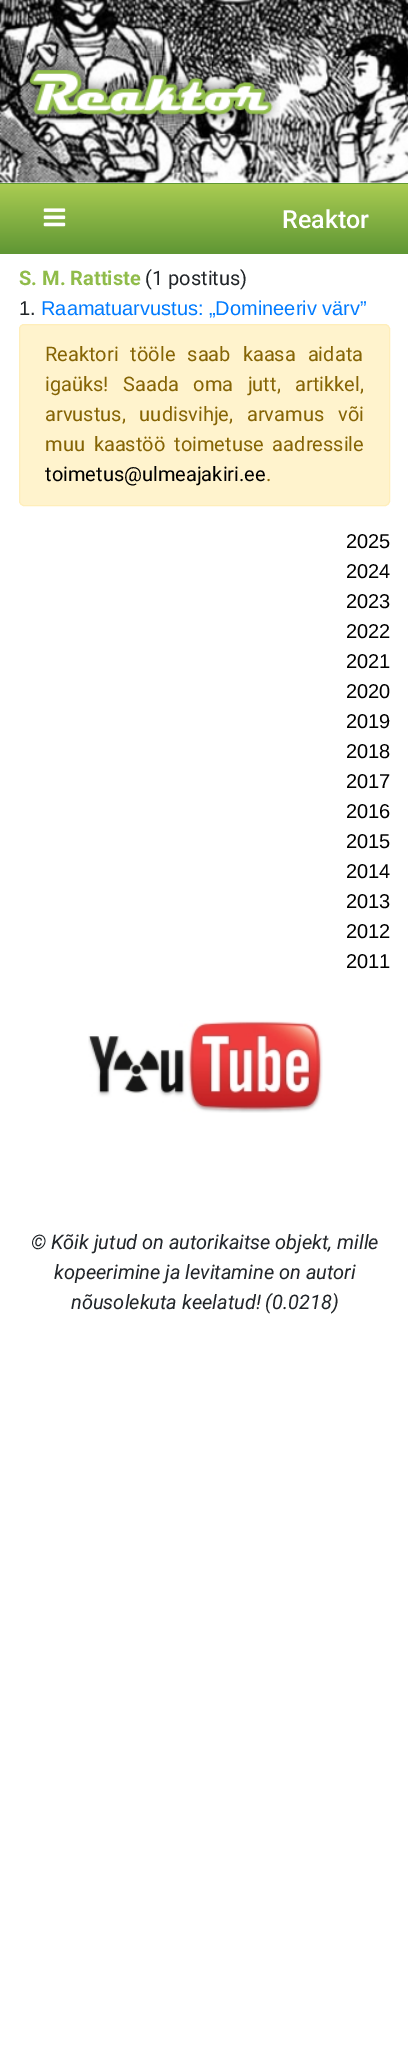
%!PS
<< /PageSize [408 2063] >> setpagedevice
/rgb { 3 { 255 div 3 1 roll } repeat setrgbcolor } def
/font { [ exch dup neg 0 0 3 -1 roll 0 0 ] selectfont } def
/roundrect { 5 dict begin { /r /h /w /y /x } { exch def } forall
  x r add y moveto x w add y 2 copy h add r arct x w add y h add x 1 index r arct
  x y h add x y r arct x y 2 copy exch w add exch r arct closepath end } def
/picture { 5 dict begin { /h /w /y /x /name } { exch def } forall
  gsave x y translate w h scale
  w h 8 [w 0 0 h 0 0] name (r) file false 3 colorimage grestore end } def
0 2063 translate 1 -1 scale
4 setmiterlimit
255 255 255 rgb
0 0 408 2063 rectfill
(img/1.rgb) 0 0 408 183 picture
(img/2.rgb) 21 60 259 63 picture
gsave 0 183 moveto 408 183 lineto 408 184 lineto 0 184 lineto closepath clip newpath
<< /ShadingType 2 /ColorSpace /DeviceRGB /Coords [204 184 204 114] /Extend [true true] /Function << /FunctionType 2 /Domain [0 1] /C0 [0.373 0.588 0.204] /C1 [0.667 0.8 0.322] /N 1 >> >> shfill grestore
gsave 0 184 moveto 408 184 lineto 408 254 lineto 0 254 lineto closepath clip newpath
<< /ShadingType 2 /ColorSpace /DeviceRGB /Coords [204 254 204 184] /Extend [true true] /Function << /FunctionType 2 /Domain [0 1] /C0 [0.373 0.588 0.204] /C1 [0.667 0.8 0.322] /N 1 >> >> shfill grestore
(img/3.rgb) 43 208 23 19 picture
255 243 205 rgb
19.5 324.5 370 181 4.5 roundrect gsave fill grestore
255 238 186 rgb
stroke
(img/4.rgb) 88 1020 235 93 picture
/Roboto-Medium 25 font
255 255 255 rgb
282 228 moveto (Reaktor) show
/Roboto-Bold 20 font
144 188 74 rgb
19 285 moveto (S. M. Rattiste) show
/Roboto-Regular 20 font
33 37 41 rgb
145 285 moveto (\(1 postitus\)) show
/LiberationSans-Regular 20 font
19 315 moveto (1.) show
0 123 255 rgb
41 315 moveto (Raamatuarvustus: „Domineeriv värv”) show
/Roboto-Regular 20 font
133 100 4 rgb
45 361 moveto 7 0 32 (Reaktori tööle saab kaasa aidata) widthshow
45 391 moveto 9.5 0 32 (igaüks! Saada oma jutt, artikkel,) widthshow
45 421 moveto 9 0 32 (arvustus, uudisvihje, arvamus või) widthshow
45 451 moveto 4 0 32 (muu kaastöö toimetuse aadressile) widthshow
0 0 0 rgb
45 481 moveto (toimetus@ulmeajakiri.ee) show
133 100 4 rgb
266 481 moveto (.) show
/LiberationSans-Regular 20 font
0 0 0 rgb
[
  [(2025) 346 548]
  [(2024) 346 578]
  [(2023) 346 608]
  [(2022) 346 638]
  [(2021) 346 668]
  [(2020) 346 698]
  [(2019) 346 728]
  [(2018) 346 758]
  [(2017) 346 788]
  [(2016) 346 818]
  [(2015) 346 848]
  [(2014) 346 878]
  [(2013) 346 908]
  [(2012) 346 938]
  [(2011) 346 968]
] { aload pop moveto show } forall
/Roboto-Italic 20 font
33 37 41 rgb
[
  [(© Kõik jutud on autorikaitse objekt, mille) 31 1249]
  [(kopeerimine ja levitamine on autori) 54 1279]
  [(nõusolekuta keelatud! \(0.0218\)) 71 1309]
] { aload pop moveto show } forall
showpage
